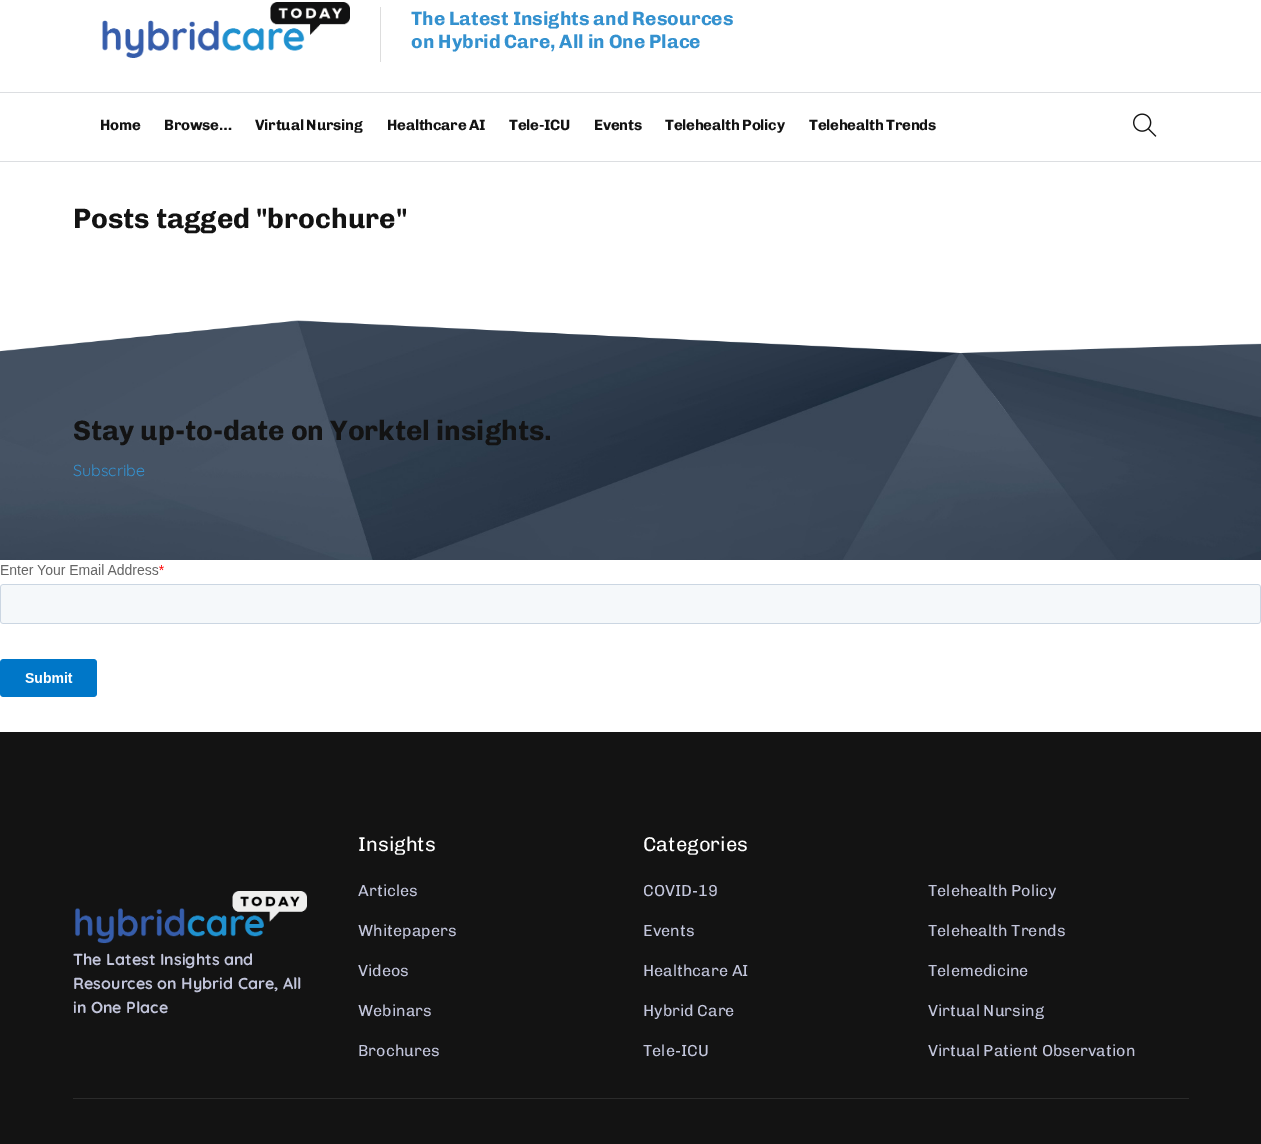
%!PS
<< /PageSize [1261 1144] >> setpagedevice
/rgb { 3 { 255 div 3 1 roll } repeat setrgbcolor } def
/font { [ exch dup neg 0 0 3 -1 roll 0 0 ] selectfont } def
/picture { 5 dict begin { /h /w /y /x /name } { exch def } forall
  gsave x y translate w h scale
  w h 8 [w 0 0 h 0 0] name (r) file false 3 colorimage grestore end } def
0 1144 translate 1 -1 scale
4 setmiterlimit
255 255 255 rgb
0 0 1261 1144 rectfill
(img/1.rgb) 102 2 248 56 picture
[
  [380 7 1 55 221 221 221]
  [0 92 1261 1 220 222 225]
  [0 161 1261 1 220 222 225]
] { aload pop rgb rectfill } forall
(img/2.rgb) 1133 113 24 24 picture
(img/3.rgb) 0 320 1261 240 picture
(img/4.rgb) 0 564 1261 133 picture
19 19 19 rgb
0 732 1261 412 rectfill
(img/5.rgb) 75 891 232 53 picture
43 43 43 rgb
73 1098 1116 1 rectfill
/Chivo-Bold 19.25 font
52 145 207 rgb
411 25 moveto (The Latest Insights and Resources) show
411 48 moveto (on Hybrid Care, All in One Place) show
/Chivo-Bold 15 font
19 19 19 rgb
100 130 moveto -0.25 0 (Home) ashow
164 130 moveto -0.25 0 (Browse…) ashow
255 130 moveto -0.25 0 (Virtual Nursing) ashow
387 130 moveto -0.25 0 (Healthcare AI) ashow
509 130 moveto -0.25 0 (Tele-ICU) ashow
594 130 moveto -0.25 0 (Events) ashow
665 130 moveto -0.25 0 (Telehealth Policy) ashow
809 130 moveto -0.25 0 (Telehealth Trends) ashow
/Chivo-Bold 28 font
73 228 moveto (Posts tagged "brochure") show
73 440 moveto (Stay up-to-date on Yorktel insights.) show
/Quicksand-Regular 16 font
52 145 207 rgb
73 476 moveto (Subscribe) show
/Quicksand-Bold 16 font
194 197 219 rgb
[
  [(The Latest Insights and) 73 965]
  [(Resources on Hybrid Care, All) 73 989]
  [(in One Place) 73 1013]
] { aload pop moveto show } forall
/Chivo-Regular 20 font
255 255 255 rgb
358 851 moveto (Insights) show
/Chivo-Regular 16 font
194 197 219 rgb
[
  [(Articles) 358 896]
  [(Whitepapers) 358 936]
  [(Videos) 358 976]
  [(Webinars) 358 1016]
  [(Brochures) 358 1056]
] { aload pop moveto show } forall
/Chivo-Regular 20 font
255 255 255 rgb
643 851 moveto (Categories) show
/Chivo-Regular 16 font
194 197 219 rgb
[
  [(COVID-19) 643 896]
  [(Events) 643 936]
  [(Healthcare AI) 643 976]
  [(Hybrid Care) 643 1016]
  [(Tele-ICU) 643 1056]
  [(Telehealth Policy) 928 896]
  [(Telehealth Trends) 928 936]
  [(Telemedicine) 928 976]
  [(Virtual Nursing) 928 1016]
  [(Virtual Patient Observation) 928 1056]
] { aload pop moveto show } forall
showpage
